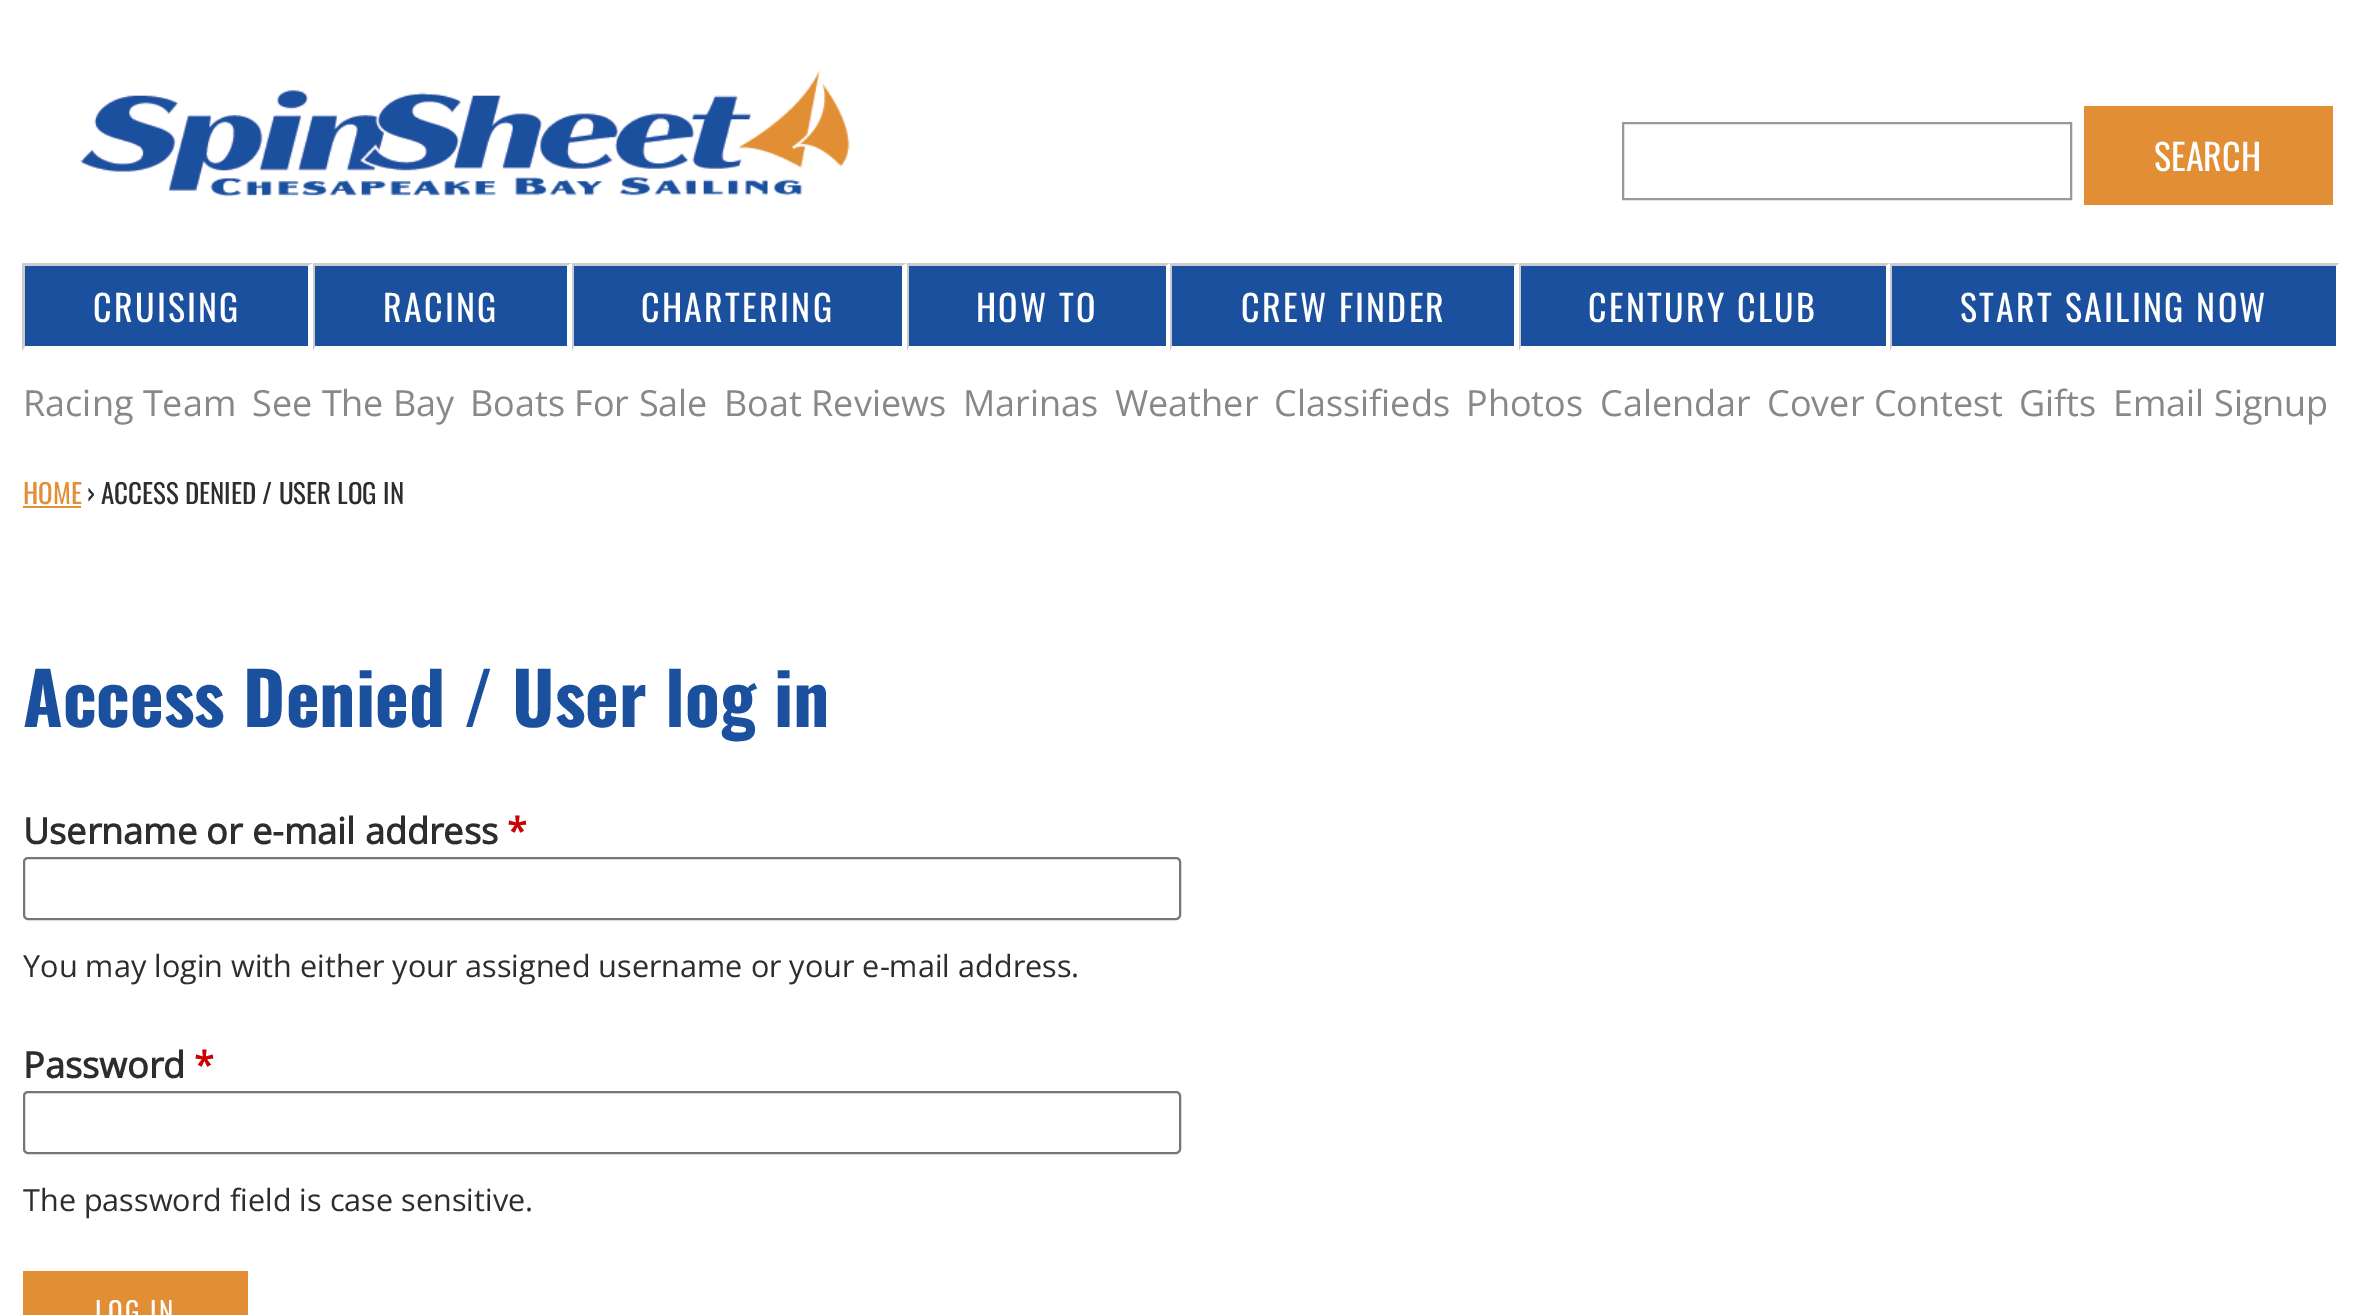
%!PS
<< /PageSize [2354 1315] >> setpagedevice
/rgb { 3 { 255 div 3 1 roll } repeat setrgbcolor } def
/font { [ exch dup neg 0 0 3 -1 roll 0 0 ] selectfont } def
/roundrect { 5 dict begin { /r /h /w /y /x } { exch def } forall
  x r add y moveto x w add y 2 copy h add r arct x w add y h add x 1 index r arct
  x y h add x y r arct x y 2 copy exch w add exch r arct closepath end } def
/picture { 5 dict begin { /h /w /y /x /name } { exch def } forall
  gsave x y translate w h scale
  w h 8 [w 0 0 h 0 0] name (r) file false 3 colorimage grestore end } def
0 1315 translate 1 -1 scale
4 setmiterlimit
255 255 255 rgb
0 0 2354 1315 rectfill
(img/1.rgb) 80 53 770 144 picture
153 153 153 rgb
2 setlinewidth
1623 123 448 76 rectstroke
225 142 53 rgb
2084 106 249 99 rectfill
27 80 158 rgb
25 266 283 80 rectfill
204 204 204 rgb
22 263 moveto 313 263 lineto 308 266 lineto 25 266 lineto closepath fill
255 255 255 rgb
313 263 moveto 313 351 lineto 308 346 lineto 308 266 lineto closepath fill
204 204 204 rgb
22 351 moveto 22 263 lineto 25 266 lineto 25 346 lineto closepath fill
27 80 158 rgb
315 266 252 80 rectfill
204 204 204 rgb
313 263 moveto 572 263 lineto 567 266 lineto 315 266 lineto closepath fill
255 255 255 rgb
572 263 moveto 572 351 lineto 567 346 lineto 567 266 lineto closepath fill
204 204 204 rgb
313 351 moveto 313 263 lineto 315 266 lineto 315 346 lineto closepath fill
27 80 158 rgb
574 266 328 80 rectfill
204 204 204 rgb
572 263 moveto 907 263 lineto 902 266 lineto 574 266 lineto closepath fill
255 255 255 rgb
907 263 moveto 907 351 lineto 902 346 lineto 902 266 lineto closepath fill
204 204 204 rgb
572 351 moveto 572 263 lineto 574 266 lineto 574 346 lineto closepath fill
27 80 158 rgb
909 266 257 80 rectfill
204 204 204 rgb
907 263 moveto 1170 263 lineto 1166 266 lineto 909 266 lineto closepath fill
255 255 255 rgb
1170 263 moveto 1170 351 lineto 1166 346 lineto 1166 266 lineto closepath fill
204 204 204 rgb
907 351 moveto 907 263 lineto 909 266 lineto 909 346 lineto closepath fill
27 80 158 rgb
1172 266 342 80 rectfill
204 204 204 rgb
1170 263 moveto 1519 263 lineto 1514 266 lineto 1172 266 lineto closepath fill
255 255 255 rgb
1519 263 moveto 1519 351 lineto 1514 346 lineto 1514 266 lineto closepath fill
204 204 204 rgb
1170 351 moveto 1170 263 lineto 1172 266 lineto 1172 346 lineto closepath fill
27 80 158 rgb
1521 266 365 80 rectfill
204 204 204 rgb
1519 263 moveto 1890 263 lineto 1886 266 lineto 1521 266 lineto closepath fill
255 255 255 rgb
1890 263 moveto 1890 351 lineto 1886 346 lineto 1886 266 lineto closepath fill
204 204 204 rgb
1519 351 moveto 1519 263 lineto 1521 266 lineto 1521 346 lineto closepath fill
27 80 158 rgb
1892 266 444 80 rectfill
204 204 204 rgb
1890 263 moveto 2340 263 lineto 2336 266 lineto 1892 266 lineto closepath fill
255 255 255 rgb
2340 263 moveto 2340 351 lineto 2336 346 lineto 2336 266 lineto closepath fill
204 204 204 rgb
1890 351 moveto 1890 263 lineto 1892 266 lineto 1892 346 lineto closepath fill
225 142 53 rgb
23 506 58 2 rectfill
118 118 118 rgb
24 858 1156 61 4 roundrect stroke
24 1092 1156 61 4 roundrect stroke
225 142 53 rgb
23 1271 225 44 rectfill
/Oswald-Regular 36 font
255 255 255 rgb
2154 171 moveto (SEARCH) show
93 322 moveto 2.25 0 (CRUISING) ashow
383 322 moveto 2.25 0 (RACING) ashow
641 322 moveto 2.25 0 (CHARTERING) ashow
976 322 moveto 2.25 0 (HOW TO) ashow
1241 322 moveto 2.25 0 (CREW FINDER) ashow
1588 322 moveto 2.25 0 (CENTURY CLUB) ashow
1960 322 moveto 2.25 0 (START SAILING NOW) ashow
/OpenSans-Regular 36 font
136 136 136 rgb
[
  [(Racing Team) 23 416]
  [(See The Bay) 252 416]
  [(Boats For Sale) 470 416]
  [(Boat Reviews) 724 416]
  [(Marinas) 963 416]
  [(Weather) 1115 416]
  [(Classifieds) 1274 416]
  [(Photos) 1466 416]
  [(Calendar) 1600 416]
  [(Cover Contest) 1767 416]
  [(Gifts) 2019 416]
  [(Email Signup) 2113 416]
] { aload pop moveto show } forall
/Oswald-Regular 27 font
225 142 53 rgb
23 504 moveto (HOME) show
45 45 45 rgb
87 504 moveto (› ACCESS DENIED / USER LOG IN) show
/Oswald-Bold 72 font
27 80 158 rgb
23 727 moveto (Access Denied / User log in) show
/OpenSans-Bold 36 font
45 45 45 rgb
23 844 moveto (Username or e-mail address) show
204 0 0 rgb
507 844 moveto (*) show
/OpenSans-Regular 30.6 font
45 45 45 rgb
23 977 moveto (You may login with either your assigned username or your e-mail address.) show
/OpenSans-Bold 36 font
23 1078 moveto (Password) show
204 0 0 rgb
194 1078 moveto (*) show
/OpenSans-Regular 30.6 font
45 45 45 rgb
23 1211 moveto (The password field is case sensitive.) show
/Oswald-Regular 27 font
255 255 255 rgb
95 1322 moveto 2.25 0 (LOG IN) ashow
showpage
